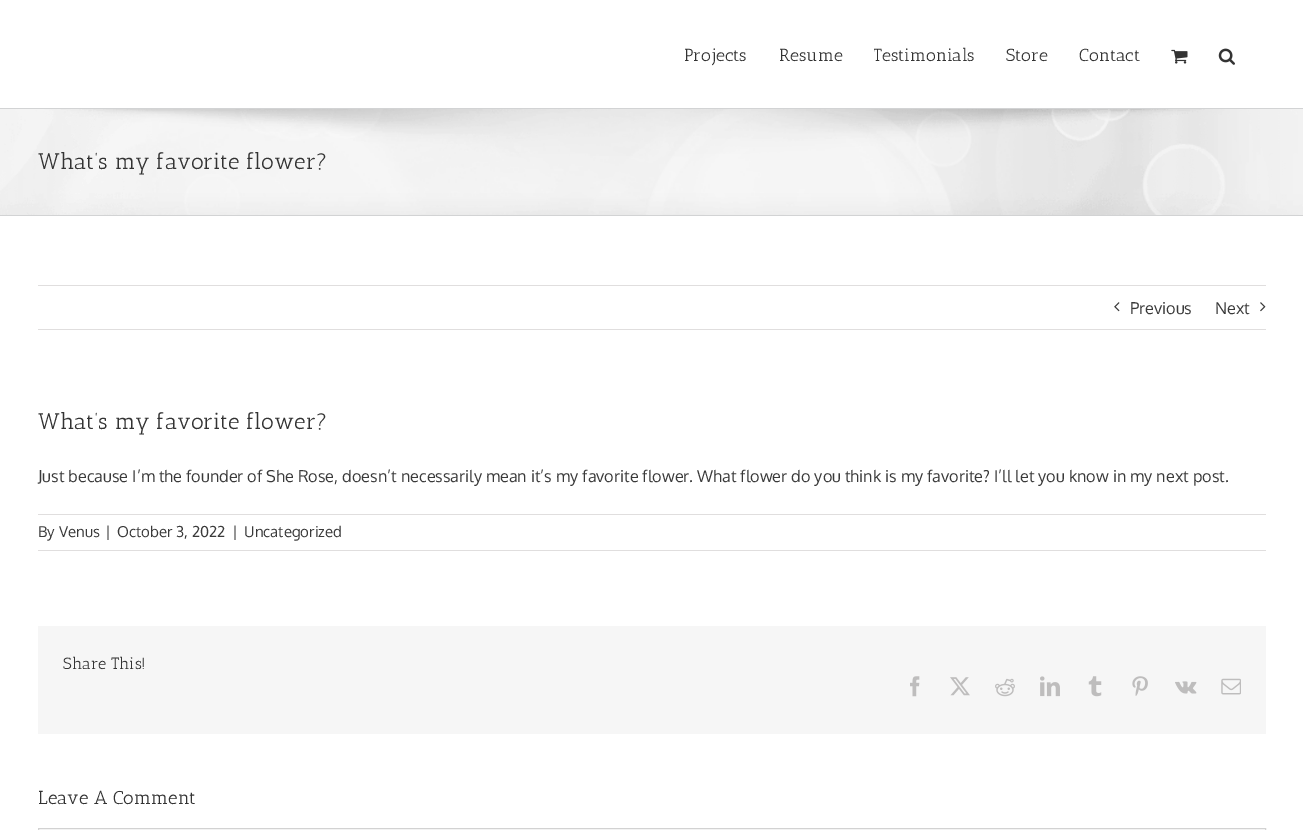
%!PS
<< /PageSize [1303 830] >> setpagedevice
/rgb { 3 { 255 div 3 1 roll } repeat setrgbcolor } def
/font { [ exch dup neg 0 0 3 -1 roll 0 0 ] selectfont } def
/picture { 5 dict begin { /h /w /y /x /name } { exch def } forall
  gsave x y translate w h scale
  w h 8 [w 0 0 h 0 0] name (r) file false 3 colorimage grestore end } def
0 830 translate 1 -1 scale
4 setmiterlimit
246 246 246 rgb
0 0 1303 830 rectfill
255 255 255 rgb
0 0 1303 108 rectfill
(img/1.rgb) 1171 49 17 15 picture
(img/2.rgb) 1218 48 17 17 picture
(img/3.rgb) 0 109 1303 106 picture
[
  [0 108 1303 1 210 211 212]
  [0 215 1303 1 210 211 212]
  [0 216 1303 614 255 255 255]
  [38 285 1228 1 224 222 222]
  [38 329 1228 1 224 222 222]
] { aload pop rgb rectfill } forall
(img/4.rgb) 1114 302 6 10 picture
(img/5.rgb) 1260 302 6 10 picture
[
  [38 514 1228 1 224 222 222]
  [38 550 1228 1 224 222 222]
  [38 626 1228 108 246 246 246]
] { aload pop rgb rectfill } forall
(img/6.rgb) 910 676 10 21 picture
(img/7.rgb) 950 677 20 19 picture
(img/8.rgb) 995 678 20 19 picture
(img/9.rgb) 1040 676 20 21 picture
(img/10.rgb) 1088 676 14 21 picture
(img/11.rgb) 1132 676 16 20 picture
(img/12.rgb) 1175 681 22 13 picture
(img/13.rgb) 1221 678 20 17 picture
210 210 210 rgb
38.5 828.5 1227 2 rectstroke
/AnticSlab-Regular 17.5 font
51 51 51 rgb
684 61 moveto (Projects) show
779 61 moveto (Resume) show
gsave
874 0 132 108 rectclip
873 61 moveto (Testimonials) show
grestore
1006 61 moveto (Store) show
1079 61 moveto (Contact) show
/AnticSlab-Regular 22.5 font
38 169 moveto (What’s my favorite flower?) show
/Oxygen-Regular 16.25 font
58 58 58 rgb
1130 314 moveto (Previous) show
1215 314 moveto (Next) show
/AnticSlab-Regular 22.5 font
51 51 51 rgb
38 429 moveto (What’s my favorite flower?) show
/Oxygen-Regular 16.25 font
58 58 58 rgb
38 482 moveto (Just because I’m the founder of She Rose, doesn’t necessarily mean it’s my favorite flower. What flower do you think is my favorite? I’ll let you know in my next post.) show
/Oxygen-Regular 15 font
[
  [(By Venus) 38 537]
  [(|) 105 537]
  [(October 3, 2022) 117 537]
  [(|) 232 537]
  [(Uncategorized) 244 537]
] { aload pop moveto show } forall
/AnticSlab-Regular 16.25 font
51 51 51 rgb
63 669 moveto (Share This!) show
/AnticSlab-Regular 18.75 font
38 804 moveto (Leave A Comment) show
showpage
